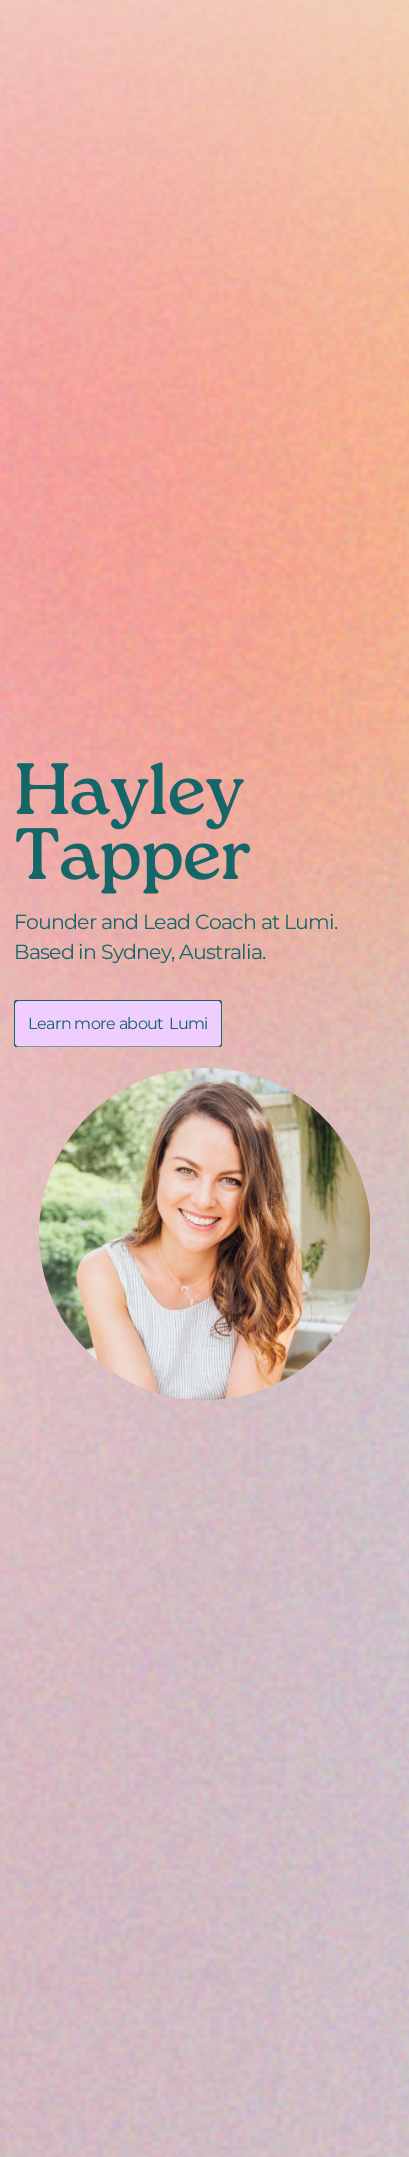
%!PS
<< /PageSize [409 2157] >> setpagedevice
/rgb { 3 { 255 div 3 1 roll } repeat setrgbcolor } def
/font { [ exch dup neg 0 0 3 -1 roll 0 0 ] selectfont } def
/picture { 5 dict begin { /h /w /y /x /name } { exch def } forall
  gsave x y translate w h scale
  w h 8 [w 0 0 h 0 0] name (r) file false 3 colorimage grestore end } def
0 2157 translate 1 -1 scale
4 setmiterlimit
238 236 222 rgb
0 0 409 2157 rectfill
(img/1.rgb) 0 0 409 2157 picture
(img/2.rgb) 16 762 228 68 picture
(img/3.rgb) 16 828 234 66 picture
gsave
14 1000 208 47 rectclip
240 205 255 rgb
18 1000 moveto 218 1000 lineto 220 1000 221 1001 222 1003 curveto 222 1036 lineto 222 1040 223 1046 219 1047 curveto 85 1048 lineto 80 1048 19 1049 16 1047 curveto 14 1045 lineto 14 1011 lineto 14 1007 13 1000 18 1000 curveto closepath fill
grestore
gsave
14 1000 208 47 rectclip
18.5 1000 moveto 218 1000 lineto 220 1000 222 1002 222 1004.5 curveto 222 1043.5 lineto 222 1045.5 220 1047.5 218 1047.5 curveto 18.5 1047.5 lineto 16 1047.5 14 1045.5 14 1043.5 curveto 14 1004.5 lineto 14 1002 16 1000 18.5 1000 curveto closepath clip newpath
21 102 105 rgb
1.7 setlinewidth
18.5 1000 moveto 218 1000 lineto 220 1000 222 1002 222 1004.5 curveto 222 1043.5 lineto 222 1045.5 220 1047.5 218 1047.5 curveto 18.5 1047.5 lineto 16 1047.5 14 1045.5 14 1043.5 curveto 14 1004.5 lineto 14 1002 16 1000 18.5 1000 curveto closepath stroke
grestore
(img/4.rgb) 39 1068 331 332 picture
/Montserrat-Regular 20.5 font
21 102 105 rgb
14 929 moveto -0.8 0 (Founder and Lead Coach at Lumi.) ashow
14 959 moveto -0.8 0 (Based in Sydney, Australia.) ashow
/Montserrat-Regular 16 font
28 1029 moveto -0.6 0 (Learn more about) ashow
169 1029 moveto -0.6 0 (Lumi) ashow
showpage
